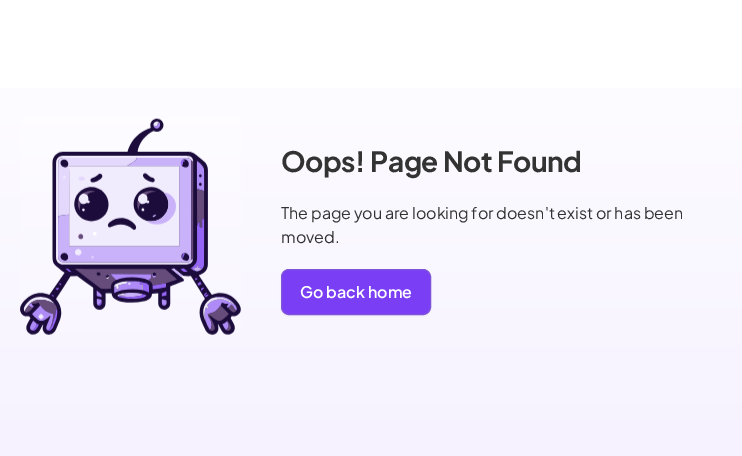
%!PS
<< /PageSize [742 456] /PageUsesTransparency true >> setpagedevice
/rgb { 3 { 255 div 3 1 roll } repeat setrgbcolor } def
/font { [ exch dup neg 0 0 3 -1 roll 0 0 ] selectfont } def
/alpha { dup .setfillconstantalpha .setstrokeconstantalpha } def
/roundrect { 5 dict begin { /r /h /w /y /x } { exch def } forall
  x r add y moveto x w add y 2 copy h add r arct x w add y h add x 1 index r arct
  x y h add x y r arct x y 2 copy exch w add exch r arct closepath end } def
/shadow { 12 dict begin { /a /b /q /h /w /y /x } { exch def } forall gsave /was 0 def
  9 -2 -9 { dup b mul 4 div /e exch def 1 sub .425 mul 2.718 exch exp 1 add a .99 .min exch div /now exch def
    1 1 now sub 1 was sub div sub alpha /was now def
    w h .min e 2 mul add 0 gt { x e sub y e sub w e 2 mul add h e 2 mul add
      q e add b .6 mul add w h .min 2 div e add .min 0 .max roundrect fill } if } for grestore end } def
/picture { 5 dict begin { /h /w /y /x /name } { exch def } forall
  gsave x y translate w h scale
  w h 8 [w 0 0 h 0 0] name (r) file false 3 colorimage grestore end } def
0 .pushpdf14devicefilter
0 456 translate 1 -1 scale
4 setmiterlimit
255 255 255 rgb
0 0 742 456 rectfill
gsave 0 88 moveto 742 88 lineto 742 456 lineto 0 456 lineto closepath clip newpath
<< /ShadingType 2 /ColorSpace /DeviceRGB /Coords [371 0 371 456] /Extend [true true] /Function << /FunctionType 2 /Domain [0 1] /C0 [1 1 1] /C1 [0.965 0.949 1] /N 1 >> >> shfill grestore
(img/1.rgb) 20 118 221 217 picture
16 24 40 rgb
281 270 150 46 8 1 0.05 shadow
122 62 244 rgb
281.5 269.5 149 45 7.5 roundrect gsave fill grestore
127 86 217 rgb
stroke
/PlusJakartaSans-Bold 28 font
51 51 51 rgb
281 172 moveto -0.4 0 (Oops! Page Not Found) ashow
/PlusJakartaSans-Regular 16 font
281 219 moveto (The page you are looking for doesn't exist or has been) show
281 243 moveto (moved.) show
/PlusJakartaSans-SemiBold 16 font
255 255 255 rgb
300 298 moveto (Go back home) show
.poppdf14devicefilter showpage
